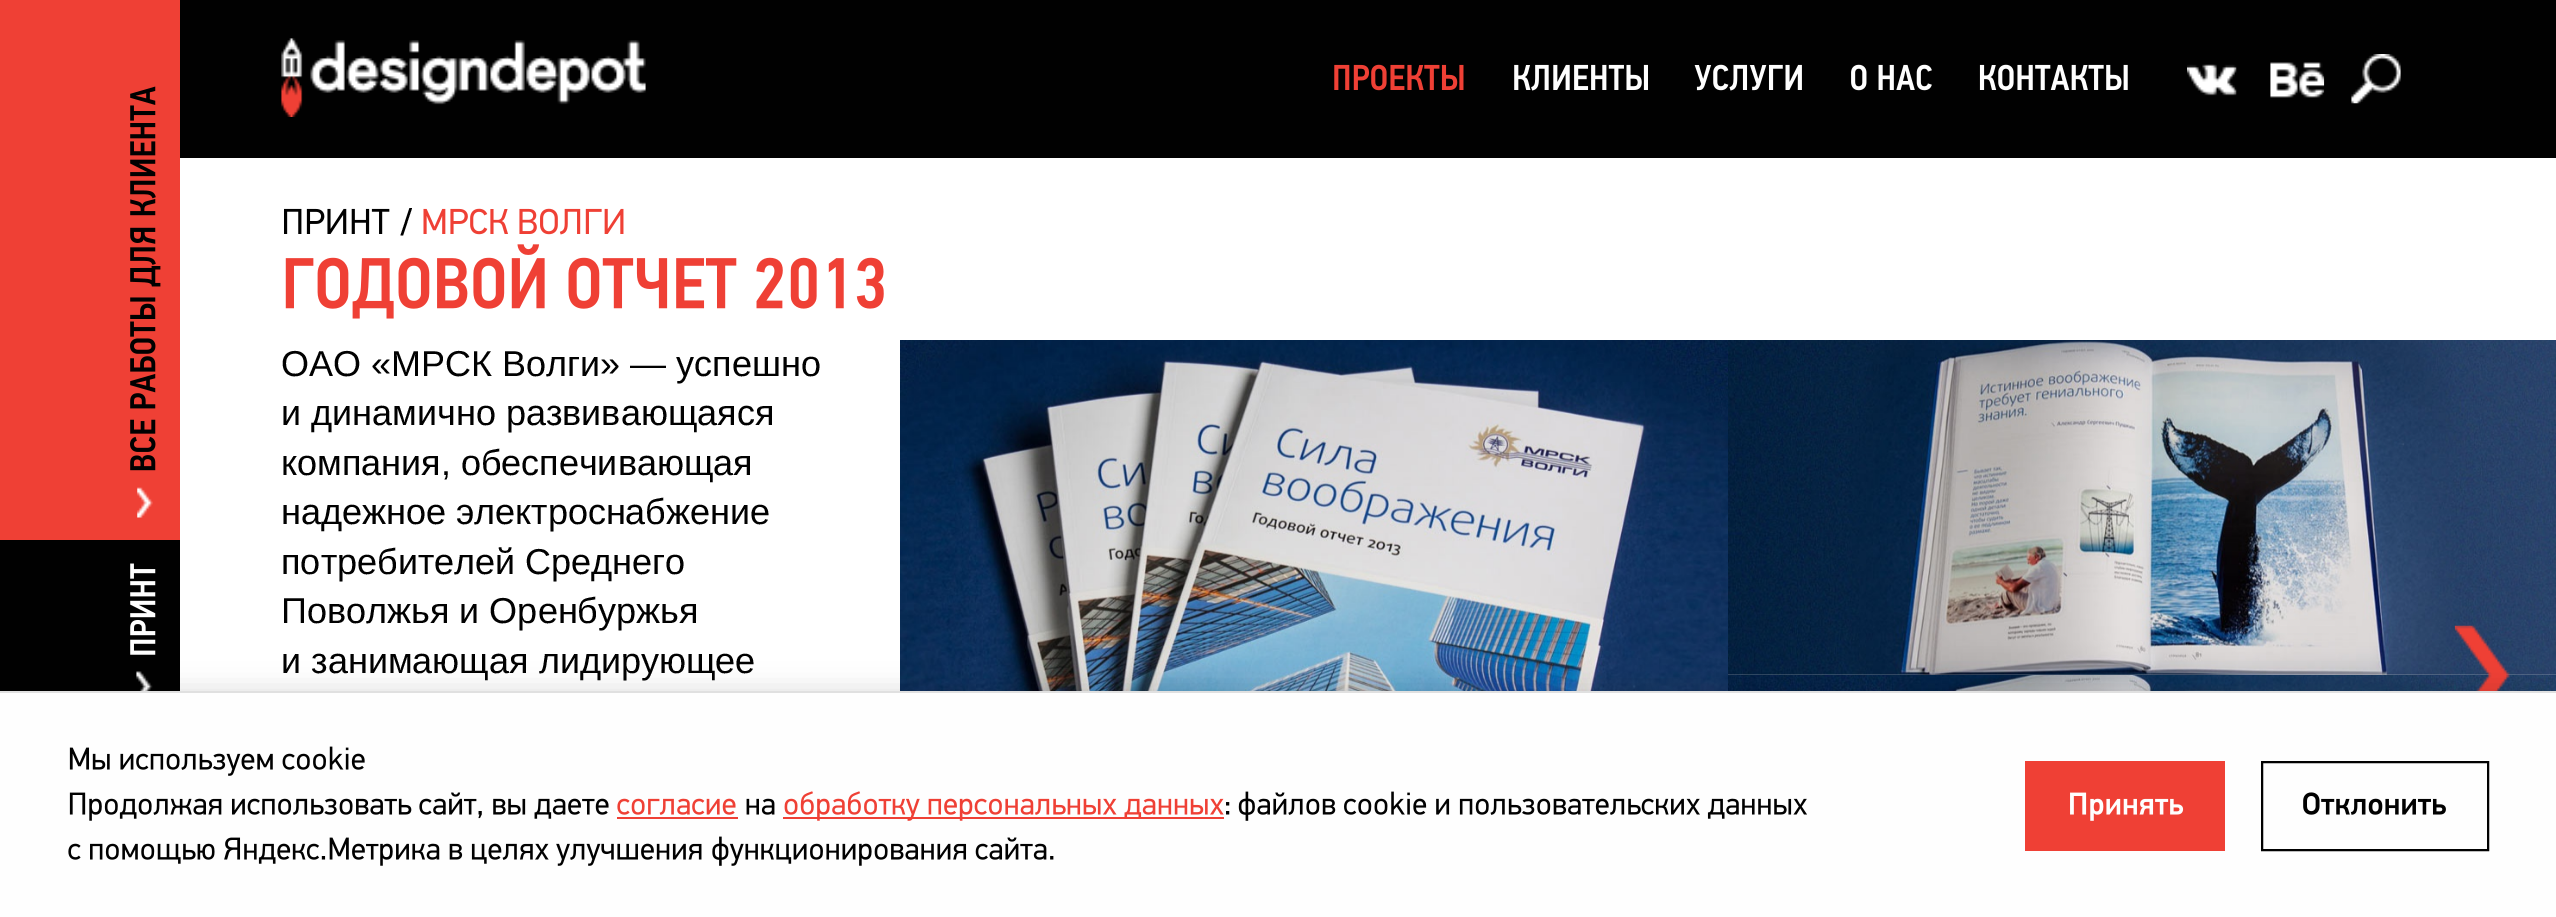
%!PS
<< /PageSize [2556 917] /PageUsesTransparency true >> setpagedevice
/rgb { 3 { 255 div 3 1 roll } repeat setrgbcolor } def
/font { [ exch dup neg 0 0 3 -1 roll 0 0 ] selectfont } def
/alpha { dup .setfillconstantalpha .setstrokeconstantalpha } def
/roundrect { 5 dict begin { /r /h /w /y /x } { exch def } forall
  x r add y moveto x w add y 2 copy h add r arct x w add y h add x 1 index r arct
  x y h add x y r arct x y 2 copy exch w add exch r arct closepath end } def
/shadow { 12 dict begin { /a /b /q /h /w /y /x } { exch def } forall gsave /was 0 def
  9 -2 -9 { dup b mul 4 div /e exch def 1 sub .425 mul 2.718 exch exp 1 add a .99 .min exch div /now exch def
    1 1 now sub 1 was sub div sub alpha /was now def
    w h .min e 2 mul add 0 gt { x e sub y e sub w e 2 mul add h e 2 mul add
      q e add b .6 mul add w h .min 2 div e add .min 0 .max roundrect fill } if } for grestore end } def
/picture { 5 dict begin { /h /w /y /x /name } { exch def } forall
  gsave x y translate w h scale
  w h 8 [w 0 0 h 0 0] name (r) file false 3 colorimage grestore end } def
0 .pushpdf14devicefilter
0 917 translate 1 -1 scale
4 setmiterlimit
255 255 255 rgb
0 0 2556 917 rectfill
239 64 53 rgb
0 0 180 540 rectfill
(img/1.rgb) 130 86 31 385 picture
(img/2.rgb) 137 487 16 31 picture
1 1 1 rgb
0 540 180 151 rectfill
(img/3.rgb) 130 563 26 92 picture
(img/4.rgb) 136 671 17 20 picture
180 0 2376 158 rectfill
(img/5.rgb) 281 38 365 79 picture
(img/6.rgb) 1334 64 130 27 picture
(img/7.rgb) 1514 64 134 27 picture
(img/8.rgb) 1694 64 108 27 picture
(img/9.rgb) 1851 64 81 27 picture
(img/10.rgb) 1979 64 149 27 picture
(img/11.rgb) 2187 64 50 32 picture
(img/12.rgb) 2270 62 55 36 picture
(img/13.rgb) 2351 54 50 50 picture
(img/14.rgb) 284 208 106 26 picture
403 235.5 moveto 400.5 235.5 lineto 409.5 208 lineto 412 208 lineto closepath fill
(img/15.rgb) 423 208 201 27 picture
(img/16.rgb) 285 244 599 75 picture
(img/17.rgb) 900 340 828 351 picture
(img/18.rgb) 1728 340 828 335 picture
(img/19.rgb) 1728 675 828 16 picture
(img/20.rgb) 2454 625 56 66 picture
0 0 0 rgb
0 686 2556 228 0 11 0.1 shadow
254 254 254 rgb
0 693 2556 224 rectfill
224 224 224 rgb
0 691 2556 2 rectfill
(img/21.rgb) 69 746 296 30 picture
(img/22.rgb) 69 792 540 29 picture
(img/23.rgb) 617 798 119 17 picture
(img/24.rgb) 746 798 29 17 picture
239 64 53 rgb
783 817 441 2 rectfill
(img/25.rgb) 784 791 440 30 picture
(img/26.rgb) 1226 802 4 13 picture
(img/27.rgb) 1238 791 569 30 picture
617 817 121 2 rectfill
(img/28.rgb) 68 837 634 29 picture
(img/29.rgb) 712 836 342 30 picture
2025 761 200 90 rectfill
(img/30.rgb) 2070 792 114 29 picture
1 1 1 rgb
2 setlinewidth
2262 762 226 88 rectstroke
(img/31.rgb) 2303 792 143 23 picture
/LiberationSans-Regular 36 font
[
  [(ОАО «МРСК Волги» — успешно) 281 376]
  [(и динамично развивающаяся) 281 425]
  [(компания, обеспечивающая) 281 475]
  [(надежное электроснабжение) 281 524]
  [(потребителей Среднего) 281 574]
  [(Поволжья и Оренбуржья) 281 623]
  [(и занимающая лидирующее) 281 673]
] { aload pop moveto show } forall
.poppdf14devicefilter showpage
